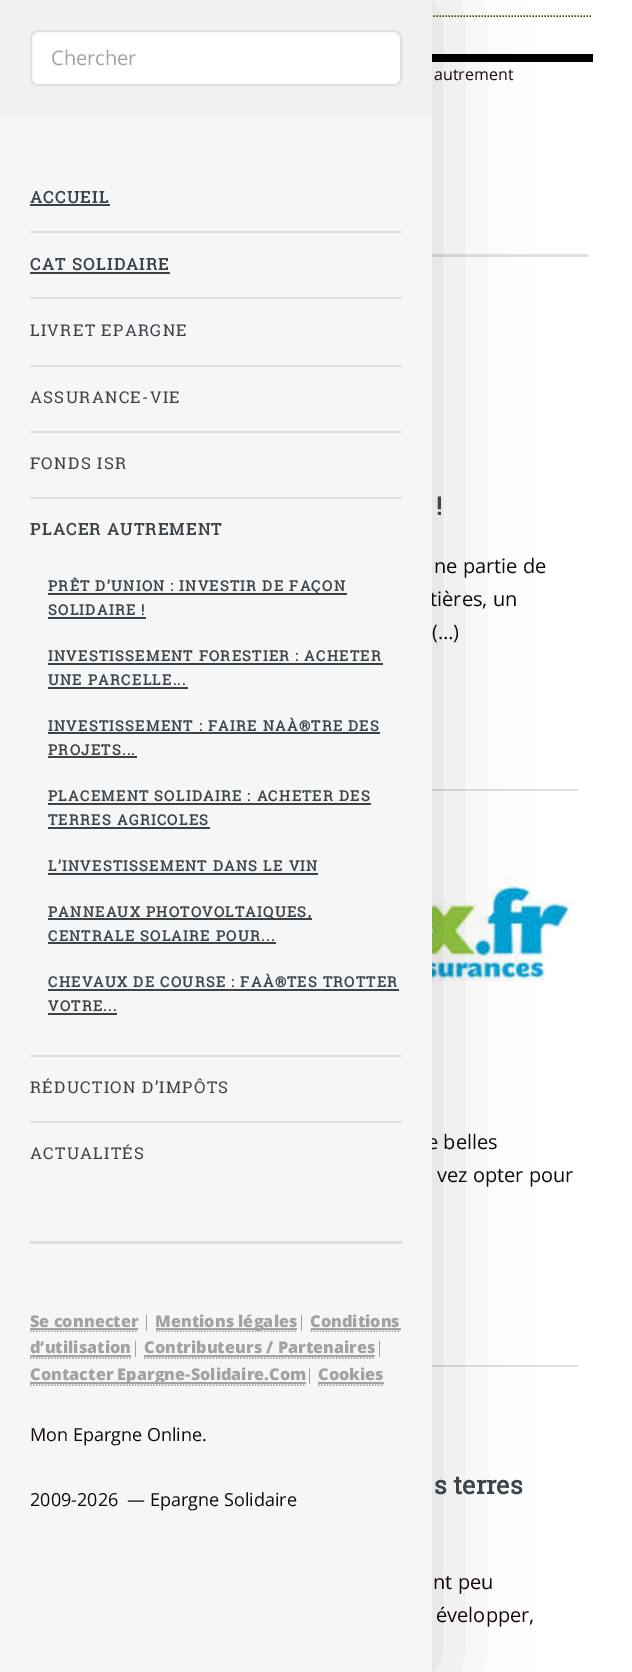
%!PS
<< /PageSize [632 1672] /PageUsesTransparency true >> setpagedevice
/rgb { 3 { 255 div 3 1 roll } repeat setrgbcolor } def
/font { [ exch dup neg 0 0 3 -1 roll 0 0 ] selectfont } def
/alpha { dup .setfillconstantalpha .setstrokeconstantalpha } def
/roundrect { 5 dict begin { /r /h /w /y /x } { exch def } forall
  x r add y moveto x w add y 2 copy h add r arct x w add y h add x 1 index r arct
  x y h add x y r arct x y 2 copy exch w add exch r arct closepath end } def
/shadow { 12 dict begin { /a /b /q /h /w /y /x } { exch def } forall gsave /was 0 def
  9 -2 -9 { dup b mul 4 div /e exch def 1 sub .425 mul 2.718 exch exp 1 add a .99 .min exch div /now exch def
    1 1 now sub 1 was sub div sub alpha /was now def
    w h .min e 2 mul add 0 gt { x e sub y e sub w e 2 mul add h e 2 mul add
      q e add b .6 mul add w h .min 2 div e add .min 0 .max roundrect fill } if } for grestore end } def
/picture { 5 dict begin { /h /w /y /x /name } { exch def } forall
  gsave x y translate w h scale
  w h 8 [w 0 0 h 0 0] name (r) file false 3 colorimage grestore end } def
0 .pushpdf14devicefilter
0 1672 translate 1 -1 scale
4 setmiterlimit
255 255 255 rgb
0 0 632 1672 rectfill
0 0 0 rgb
432 54 161 8 rectfill
59 80 3 rgb
1.5 setlinewidth
[1.5 1.5] 0 setdash
40.5 16 moveto 592.5 16 lineto stroke
221 225 227 rgb
432 254 156 3 rectfill
432 789 146 2 rectfill
(img/1.rgb) 432 836 139 159 picture
432 1365 146 2 rectfill
0 0 0 rgb
0 0 432 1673 0 45 0.18 shadow
239 241 242 rgb
0 0 432 116 rectfill
255 255 255 rgb
30 30 372 56 8 roundrect fill
0.75 alpha
210 215 217 rgb
2 setlinewidth
[] 0 setdash
31 31 370 54 7 roundrect stroke
/OpenSans-Regular 20 font
1 alpha
159 163 166 rgb
51 65 moveto (Chercher) show
/OpenSans-Regular 16 font
19 9 6 rgb
434 80 moveto (autrement) show
/RobotoSlab-Bold 25 font
61 68 73 rgb
436 515 moveto (!) show
/OpenSans-Regular 20 font
19 9 6 rgb
[
  [(ne partie de) 434 573]
  [(tières, un) 430 606]
  [(\(…\)) 432 639]
  [(e belles) 427 1149]
] { aload pop moveto show } forall
245 246 247 rgb
0 116 432 1556 rectfill
/RobotoSlab-Regular 16.25 font
61 68 73 rgb
30 1159 moveto 1.35 0 (ACTUALITÉS) ashow
30 1093 moveto 1.35 0 (RÉDUCTION D’IMPÔTS) ashow
/RobotoSlab-Bold 16.25 font
30 535 moveto 1.35 0 (PLACER AUTREMENT) ashow
/RobotoSlab-Regular 16.25 font
30 469 moveto 1.35 0 (FONDS ISR) ashow
30 403 moveto 1.35 0 (ASSURANCE-VIE) ashow
30 336 moveto 1.35 0 (LIVRET EPARGNE) ashow
/OpenSans-Regular 18 font
19 9 6 rgb
30 1506 moveto (2009-2026  — Epargne Solidaire) show
30 1441 moveto (Mon Epargne Online.) show
/OpenSans-ExtraBold 16.25 font
159 163 166 rgb
318 1380 moveto (Cookies) show
318 1382 66 2 rectfill
1.5 setlinewidth
[1.5 1.5] 0 setdash
318 1385 moveto 384 1385 lineto stroke
/OpenSans-Regular 16.25 font
305 1380 moveto (|) show
30 1382 276 2 rectfill
/OpenSans-ExtraBold 16.25 font
30 1380 moveto (Contacter Epargne-Solidaire.Com) show
30 1385 moveto 306 1385 lineto stroke
/OpenSans-Regular 16.25 font
375 1353 moveto (|) show
/OpenSans-ExtraBold 16.25 font
144 1353 moveto (Contributeurs / Partenaires) show
144 1355 231 2 rectfill
144 1358 moveto 375 1358 lineto stroke
/OpenSans-Regular 16.25 font
131 1353 moveto (|) show
/OpenSans-ExtraBold 16.25 font
30 1353 moveto (d’utilisation) show
30 1355 101 2 rectfill
310 1327 moveto (Conditions) show
311 1328 90 2 rectfill
30 1358 moveto 130.5 1358 lineto stroke
310.5 1331 moveto 400.5 1331 lineto stroke
/OpenSans-Regular 16.25 font
297 1327 moveto (|) show
156 1328 141 2 rectfill
156 1331 moveto 297 1331 lineto stroke
/OpenSans-ExtraBold 16.25 font
155 1327 moveto (Mentions légales) show
/OpenSans-Regular 16.25 font
142 1327 moveto (|) show
/OpenSans-ExtraBold 16.25 font
30 1327 moveto (Se connecter) show
30 1328 108 2 rectfill
30 1331 moveto 138 1331 lineto stroke
/RobotoSlab-Bold 14.4 font
61 68 73 rgb
48 1011 moveto 1.35 0 (VOTRE...) ashow
48 1013 69 2 rectfill
48 987 moveto 1.35 0 (CHEVAUX DE COURSE : FAÀ®TES TROTTER) ashow
48 989 351 2 rectfill
48 941 moveto 1.35 0 (CENTRALE SOLAIRE POUR...) ashow
48 942 228 2 rectfill
48 918 264 2 rectfill
48 917 moveto 1.35 0 (PANNEAUX PHOTOVOLTAIQUES,) ashow
48 871 moveto 1.35 0 (L’INVESTISSEMENT DANS LE VIN) ashow
48 873 270 2 rectfill
48 825 moveto 1.35 0 (TERRES AGRICOLES) ashow
48 827 162 2 rectfill
48 801 moveto 1.35 0 (PLACEMENT SOLIDAIRE : ACHETER DES) ashow
48 803 323 2 rectfill
48 755 moveto 1.35 0 (PROJETS...) ashow
48 756 89 2 rectfill
48 731 moveto 1.35 0 (INVESTISSEMENT : FAIRE NAÀ®TRE DES) ashow
48 732 332 2 rectfill
48 685 moveto 1.35 0 (UNE PARCELLE...) ashow
48 687 140 2 rectfill
48 661 moveto 1.35 0 (INVESTISSEMENT FORESTIER : ACHETER) ashow
48 663 335 2 rectfill
48 615 moveto 1.35 0 (SOLIDAIRE !) ashow
48 617 98 2 rectfill
48 593 299 2 rectfill
48 591 moveto 1.35 0 (PRÊT D’UNION : INVESTIR DE FAÇON) ashow
/RobotoSlab-Bold 16.25 font
30 270 moveto 1.35 0 (CAT SOLIDAIRE) ashow
30 272 140 2 rectfill
30 203 moveto 1.35 0 (ACCUEIL) ashow
[
  [30 204 80 2 61 68 73]
  [30 1121 372 2 219 223 225]
  [30 1055 372 2 219 223 225]
  [30 497 372 2 219 223 225]
  [30 431 372 2 219 223 225]
  [30 365 372 2 219 223 225]
  [30 297 372 2 219 223 225]
  [30 231 372 2 219 223 225]
  [30 1241 372 3 219 223 225]
] { aload pop rgb rectfill } forall
/OpenSans-Regular 20 font
19 9 6 rgb
437 1182 moveto (vez opter pour) show
/RobotoSlab-Bold 25 font
61 68 73 rgb
434 1494 moveto (s terres) show
/OpenSans-Regular 20 font
19 9 6 rgb
433 1589 moveto (nt peu) show
436 1622 moveto (évelopper,) show
.poppdf14devicefilter showpage
